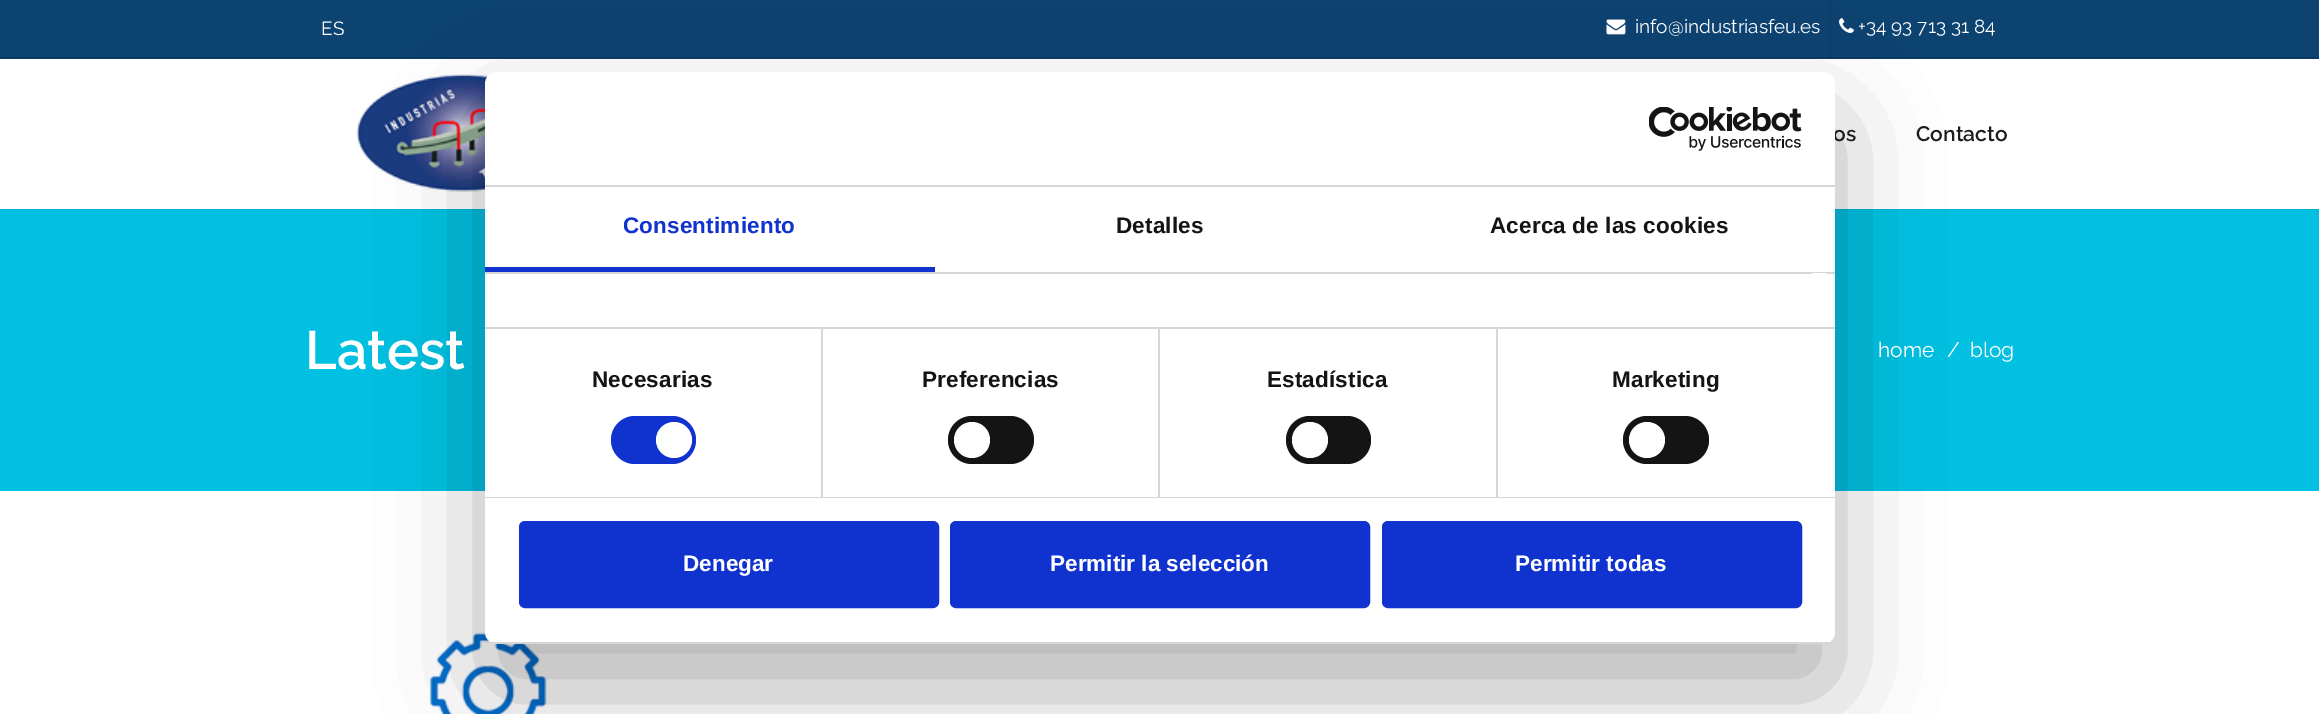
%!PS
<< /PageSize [2319 714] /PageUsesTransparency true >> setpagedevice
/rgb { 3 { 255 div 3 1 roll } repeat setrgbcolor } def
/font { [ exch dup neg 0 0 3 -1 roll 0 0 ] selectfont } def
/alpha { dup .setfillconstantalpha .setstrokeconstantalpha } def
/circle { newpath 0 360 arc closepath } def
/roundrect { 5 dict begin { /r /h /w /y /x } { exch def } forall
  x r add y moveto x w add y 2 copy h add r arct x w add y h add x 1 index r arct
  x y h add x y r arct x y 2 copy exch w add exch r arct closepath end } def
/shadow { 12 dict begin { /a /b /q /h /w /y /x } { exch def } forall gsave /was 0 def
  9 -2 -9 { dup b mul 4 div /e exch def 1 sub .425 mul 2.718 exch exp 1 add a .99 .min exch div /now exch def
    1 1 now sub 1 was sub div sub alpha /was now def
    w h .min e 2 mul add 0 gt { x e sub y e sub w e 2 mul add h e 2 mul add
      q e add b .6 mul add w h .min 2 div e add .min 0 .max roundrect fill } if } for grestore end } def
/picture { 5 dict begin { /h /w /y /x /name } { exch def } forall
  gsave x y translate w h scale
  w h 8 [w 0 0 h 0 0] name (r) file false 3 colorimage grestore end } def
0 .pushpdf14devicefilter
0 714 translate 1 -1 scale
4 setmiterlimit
255 255 255 rgb
0 0 2319 714 rectfill
[
  [0 0 2319 57 13 67 113]
  [1829 0 2 59 12 62 104]
  [0 58 2319 1 12 60 102]
  [0 57 2319 1 11 56 96]
  [1829 58 2 1 11 55 94]
  [1829 57 2 1 10 52 88]
] { aload pop rgb rectfill } forall
(img/1.rgb) 1606 19 20 16 picture
(img/2.rgb) 1839 18 15 15 picture
(img/3.rgb) 356 74 135 118 picture
1 192 225 rgb
0 210 2319 281 rectfill
1 180 212 rgb
0 209 2319 1 rectfill
(img/5.rgb) 430 632 117 82 picture
0 0 0 rgb
485 120 1350 572 12 51 0.3 shadow
/Raleway-Regular 19 font
255 255 255 rgb
[
  [(ES) 321 35]
  [(info@industriasfeu.es) 1635 33]
  [(+34 93 713 31 84) 1858 33]
] { aload pop moveto show } forall
/Raleway-SemiBold 21 font
28 28 28 rgb
1833 141 moveto (os) show
1916 141 moveto (Contacto) show
255 255 255 rgb
485 72 1350 572 12 roundrect fill
214 214 214 rgb
485 185 1350 2 rectfill
(img/4.rgb) 1649 107 153 44 picture
485 272 1350 2 rectfill
16 50 207 rgb
485 267 450 5 rectfill
/LiberationSans-Bold 22.5 font
623 233 moveto 0.15 0 (Consentimiento) ashow
20 20 20 rgb
1116 233 moveto 0.15 0 (Detalles) ashow
1490 233 moveto 0.15 0 (Acerca de las cookies) ashow
[
  [485 327 1350 2 214 214 214]
  [1812 273 14 1 255 255 255]
  [485 497 1350 1 214 214 214]
  [821 329 2 168 214 214 214]
] { aload pop rgb rectfill } forall
20 20 20 rgb
592 387 moveto 0.15 0 (Necesarias) ashow
16 50 207 rgb
611 416 85 48 24 roundrect fill
255 255 255 rgb
674 440 18 circle fill
214 214 214 rgb
1158 329 2 168 rectfill
20 20 20 rgb
922 387 moveto 0.15 0 (Preferencias) ashow
948 416 86 48 24 roundrect fill
255 255 255 rgb
972 440 18 circle fill
214 214 214 rgb
1496 329 2 168 rectfill
20 20 20 rgb
1267 387 moveto 0.15 0 (Estadística) ashow
1286 416 85 48 24 roundrect fill
255 255 255 rgb
1310 440 18 circle fill
20 20 20 rgb
1612 387 moveto 0.15 0 (Marketing) ashow
1623 416 86 48 24 roundrect fill
255 255 255 rgb
1647 440 18 circle fill
gsave
485 72 1350 572 12 roundrect clip newpath
214 214 214 rgb
485 642 1350 2 rectfill
grestore
16 50 207 rgb
520.5 522.5 417 84 4.5 roundrect gsave fill grestore
3 setlinewidth
stroke
255 255 255 rgb
683 571 moveto (Denegar) show
16 50 207 rgb
951.5 522.5 417 84 4.5 roundrect gsave fill grestore
stroke
255 255 255 rgb
1050 571 moveto (Permitir la selección) show
16 50 207 rgb
1383.5 522.5 417 84 4.5 roundrect gsave fill grestore
stroke
255 255 255 rgb
1515 571 moveto (Permitir todas) show
/Raleway-SemiBold 54 font
305 369 moveto (Latest) show
/Raleway-Regular 21 font
[
  [(home) 1878 357]
  [(/) 1947 357]
  [(blog) 1970 357]
] { aload pop moveto show } forall
.poppdf14devicefilter showpage
